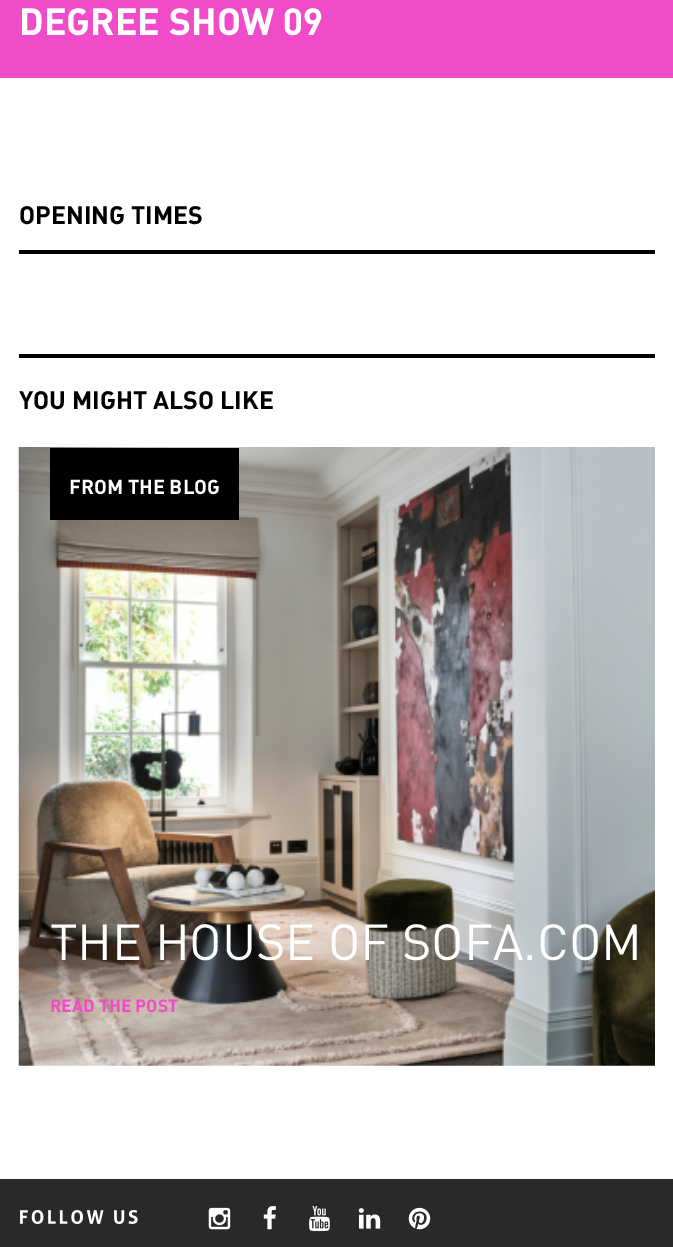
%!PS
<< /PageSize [673 1247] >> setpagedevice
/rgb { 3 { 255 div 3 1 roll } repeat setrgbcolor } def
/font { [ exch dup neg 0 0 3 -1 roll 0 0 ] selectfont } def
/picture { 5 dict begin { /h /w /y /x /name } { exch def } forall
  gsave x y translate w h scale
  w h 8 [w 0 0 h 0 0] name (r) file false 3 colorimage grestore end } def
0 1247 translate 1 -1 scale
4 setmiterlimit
255 255 255 rgb
0 0 673 1247 rectfill
[
  [0 0 673 78 240 76 201]
  [19 250 636 4 0 0 0]
  [19 354 636 4 0 0 0]
] { aload pop rgb rectfill } forall
(img/1.rgb) 18 447 637 619 picture
50 448 189 72 rectfill
41 41 41 rgb
0 1179 673 68 rectfill
(img/2.rgb) 20 1210 118 14 picture
(img/3.rgb) 208 1207 23 23 picture
(img/4.rgb) 263 1206 13 24 picture
(img/5.rgb) 309 1206 21 26 picture
(img/6.rgb) 358 1208 23 21 picture
(img/7.rgb) 408 1207 23 23 picture
/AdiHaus-Bold 37.5 font
255 255 255 rgb
19 35 moveto (DEGREE SHOW 09) show
/AdiHaus-Bold 25 font
0 0 0 rgb
19 224 moveto (OPENING TIMES) show
19 409 moveto (YOU MIGHT ALSO LIKE) show
/AdiHaus-Bold 20 font
255 255 255 rgb
69 494 moveto (FROM THE BLOG) show
/AdiHaus-Regular 50 font
50 960 moveto (THE HOUSE OF SOFA.COM) show
/AdiHaus-Bold 17.5 font
240 76 201 rgb
50 1012 moveto (READ THE POST) show
showpage
